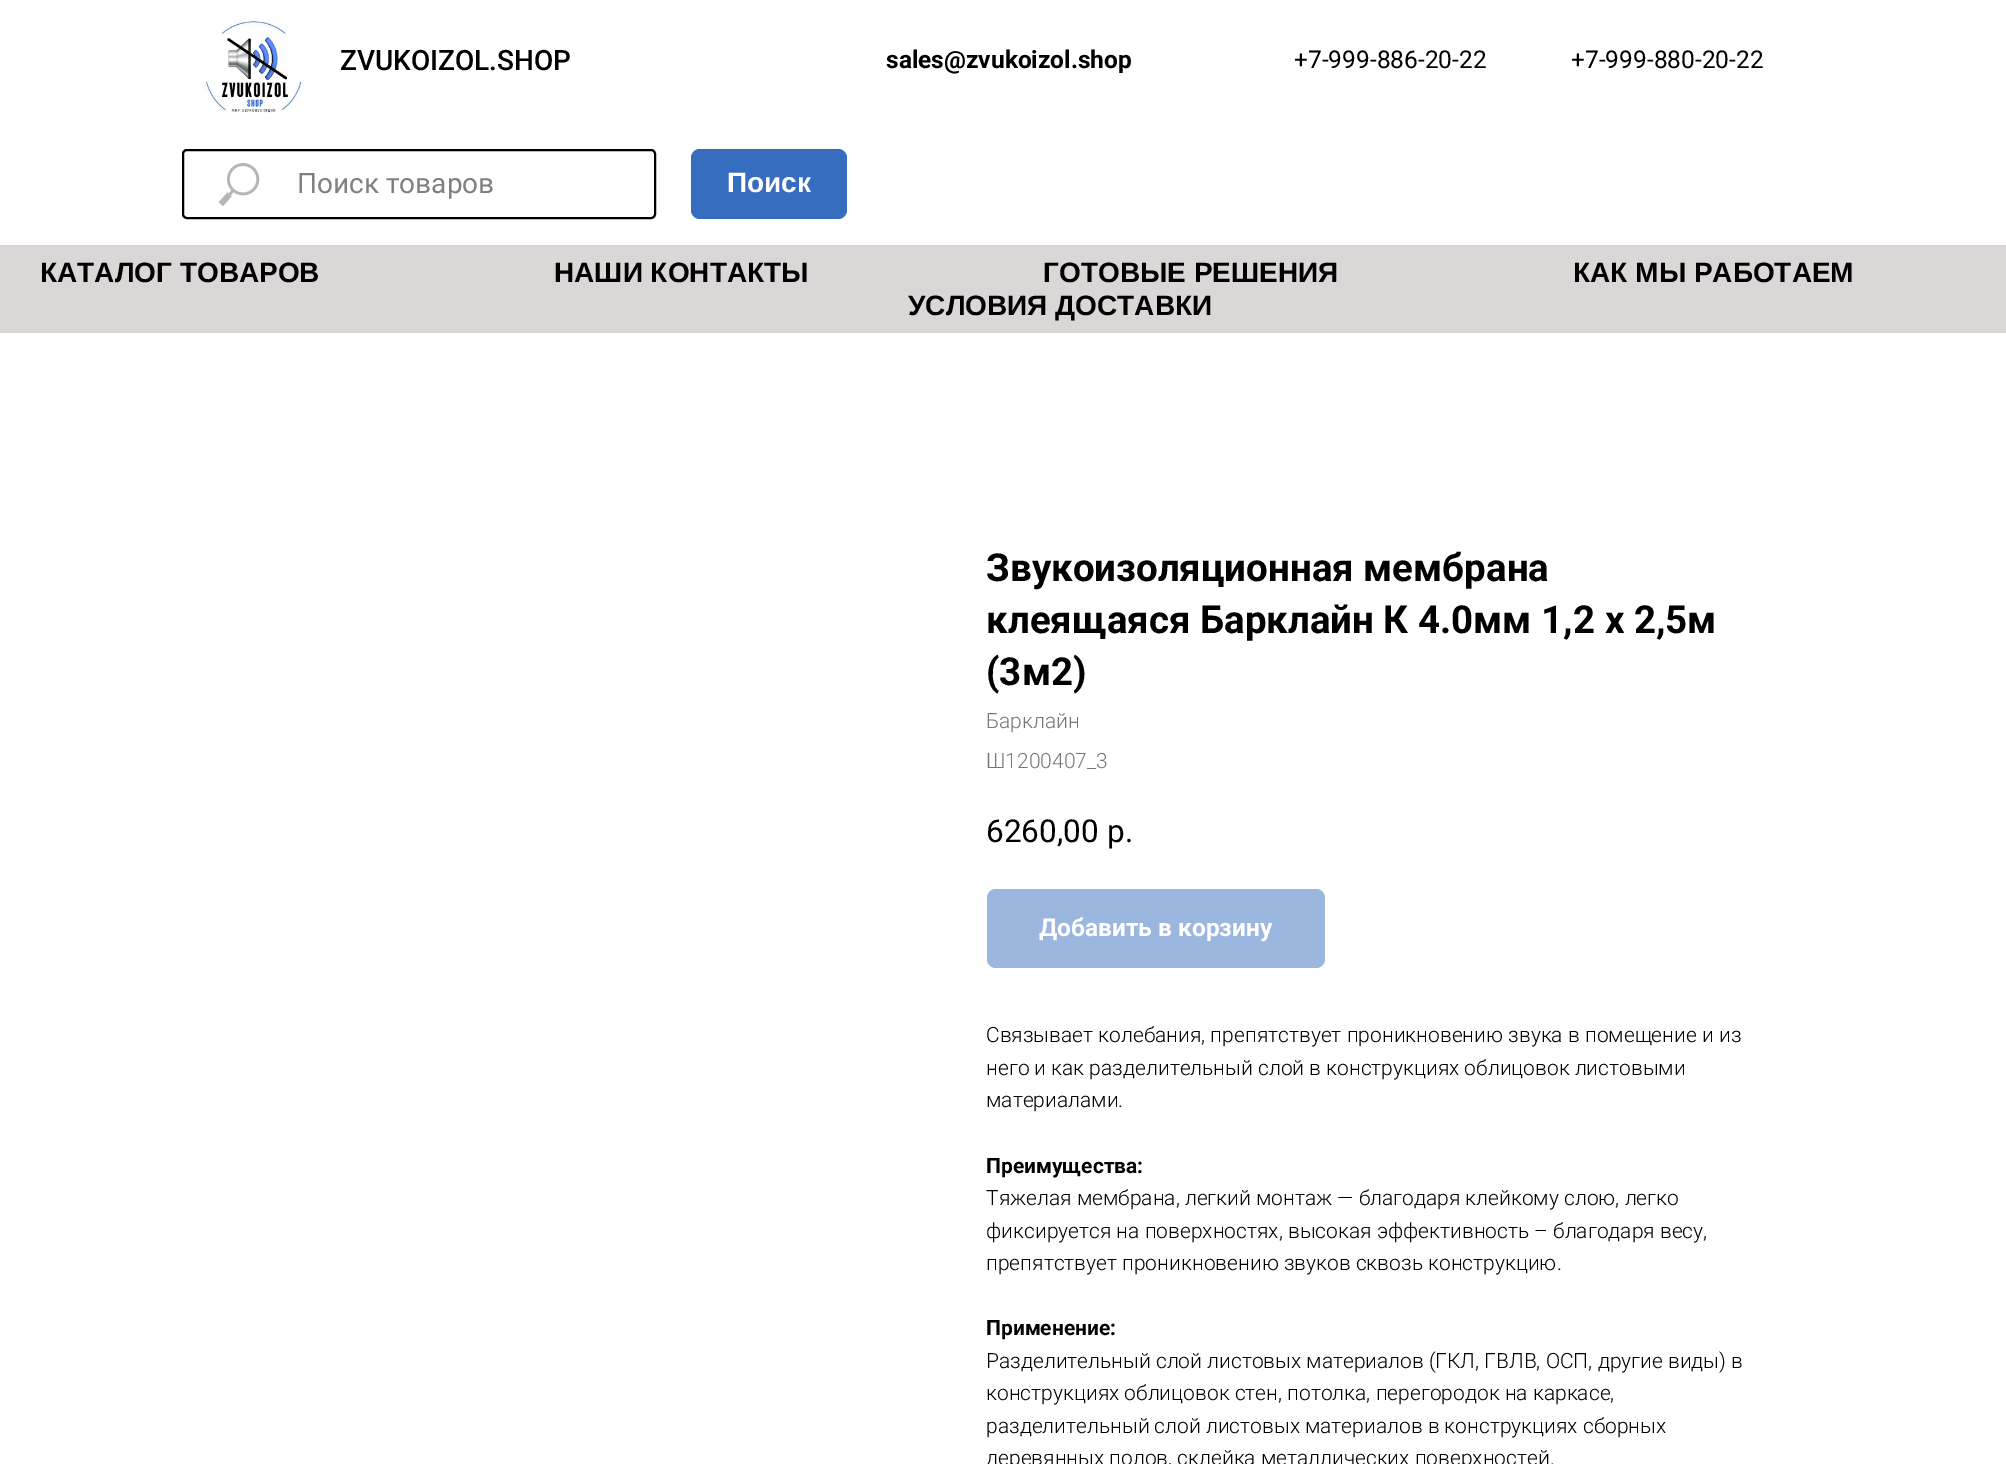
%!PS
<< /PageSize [2006 1464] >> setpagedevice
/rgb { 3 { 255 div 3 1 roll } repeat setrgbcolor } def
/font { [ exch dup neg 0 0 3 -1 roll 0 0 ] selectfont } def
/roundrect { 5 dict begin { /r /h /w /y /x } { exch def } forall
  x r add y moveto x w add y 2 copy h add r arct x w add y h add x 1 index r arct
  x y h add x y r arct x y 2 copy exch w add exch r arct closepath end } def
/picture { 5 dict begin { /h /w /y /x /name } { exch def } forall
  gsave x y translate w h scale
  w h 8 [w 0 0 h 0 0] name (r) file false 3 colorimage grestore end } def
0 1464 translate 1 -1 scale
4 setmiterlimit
255 255 255 rgb
0 0 2006 1464 rectfill
(img/1.rgb) 205 18 97 95 picture
0 0 0 rgb
2 setlinewidth
183 150 472 68 4 roundrect stroke
(img/2.rgb) 218 163 42 43 picture
54 109 191 rgb
691 149 156 70 9 roundrect fill
219 215 215 rgb
0 245 2006 88 rectfill
155 182 223 rgb
987 889 338 79 9 roundrect fill
/Roboto-Medium 28 font
0 0 0 rgb
340 70 moveto (ZVUKOIZOL.SHOP) show
/Roboto-Bold 24.5 font
886 68 moveto (sales@zvukoizol.shop) show
/Roboto-Regular 24.5 font
1294 68 moveto (+7-999-886-20-22) show
1571 68 moveto (+7-999-880-20-22) show
/Roboto-Regular 28 font
128 128 128 rgb
297 193 moveto (Поиск товаров) show
/LiberationSans-Bold 28 font
255 255 255 rgb
727 192 moveto (Поиск) show
0 0 0 rgb
[
  [(КАТАЛОГ ТОВАРОВ) 40 282]
  [(НАШИ КОНТАКТЫ) 554 282]
  [(ГОТОВЫЕ РЕШЕНИЯ) 1043 282]
  [(КАК МЫ РАБОТАЕМ) 1573 282]
  [(УСЛОВИЯ ДОСТАВКИ) 908 315]
] { aload pop moveto show } forall
/Roboto-Bold 38.5 font
[
  [(Звукоизоляционная мембрана) 986 581]
  [(клеящаяся Барклайн К 4.0мм 1,2 х 2,5м) 986 633]
  [(\(3м2\)) 986 685]
] { aload pop moveto show } forall
/Roboto-Light 21 font
119 119 119 rgb
986 728 moveto (Барклайн) show
986 768 moveto (Ш1200407_3) show
/Roboto-Regular 31.5 font
0 0 0 rgb
986 842 moveto (6260,00) show
1107 842 moveto (р.) show
/Roboto-Bold 24.5 font
255 255 255 rgb
1039 936 moveto (Добавить в корзину) show
/Roboto-Light 21 font
0 0 0 rgb
[
  [(Связывает колебания, препятствует проникновению звука в помещение и из) 986 1042]
  [(него и как разделительный слой в конструкциях облицовок листовыми) 986 1075]
  [(материалами.) 986 1107]
] { aload pop moveto show } forall
/Roboto-Bold 21 font
986 1173 moveto (Преимущества:) show
/Roboto-Light 21 font
[
  [(Тяжелая мембрана, легкий монтаж — благодаря клейкому слою, легко) 986 1205]
  [(фиксируется на поверхностях, высокая эффективность – благодаря весу,) 986 1238]
  [(препятствует проникновению звуков сквозь конструкцию.) 986 1270]
] { aload pop moveto show } forall
/Roboto-Bold 21 font
986 1335 moveto (Применение:) show
/Roboto-Light 21 font
[
  [(Разделительный слой листовых материалов \(ГКЛ, ГВЛВ, ОСП, другие виды\) в) 986 1368]
  [(конструкциях облицовок стен, потолка, перегородок на каркасе,) 986 1400]
  [(разделительный слой листовых материалов в конструкциях сборных) 986 1433]
  [(деревянных полов, склейка металлических поверхностей.) 986 1465]
] { aload pop moveto show } forall
showpage
